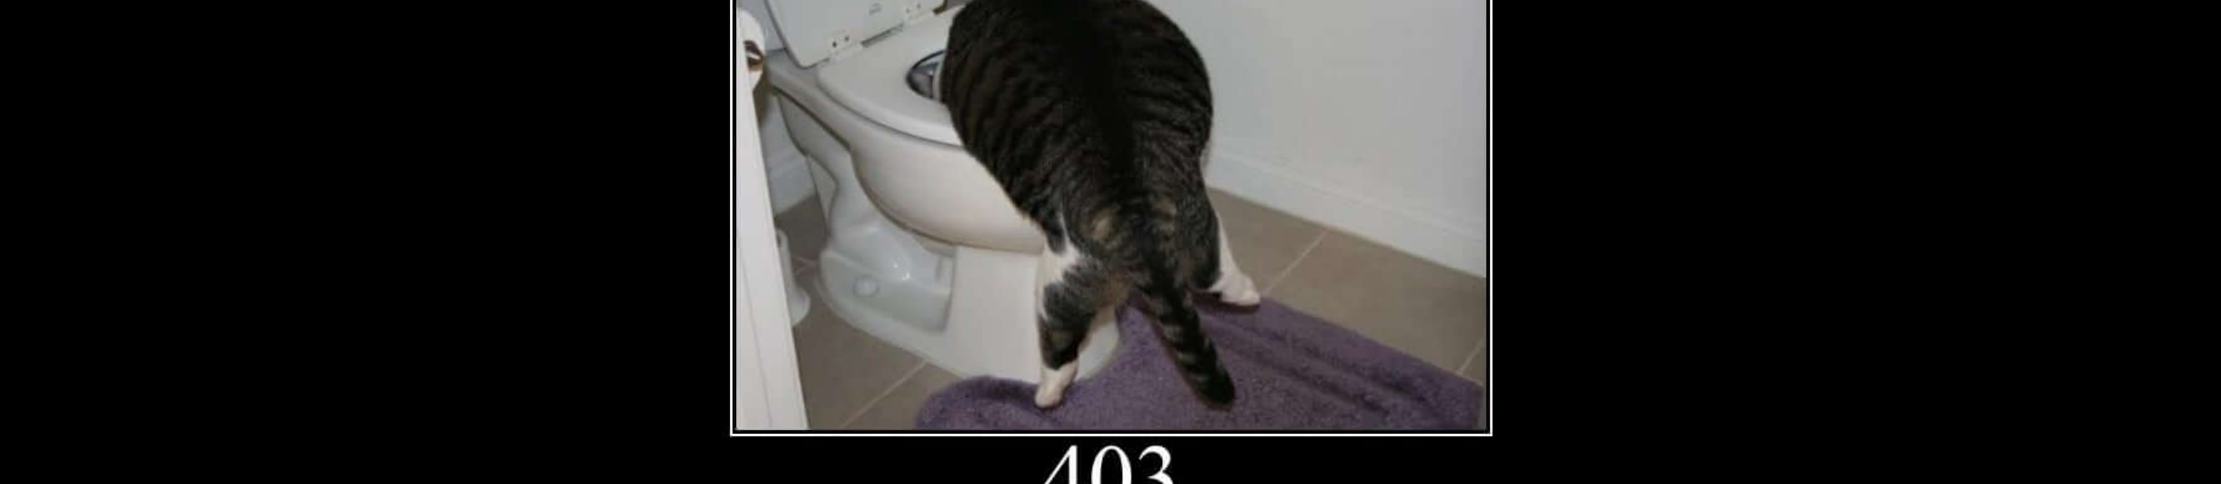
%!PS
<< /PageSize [2221 484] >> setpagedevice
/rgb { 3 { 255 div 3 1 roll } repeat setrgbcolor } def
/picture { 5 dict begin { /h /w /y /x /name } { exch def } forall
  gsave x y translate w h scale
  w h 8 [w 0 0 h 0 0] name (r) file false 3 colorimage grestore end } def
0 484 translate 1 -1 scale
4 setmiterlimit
0 0 0 rgb
0 0 2221 484 rectfill
(img/1.rgb) 722 0 771 484 picture
showpage
